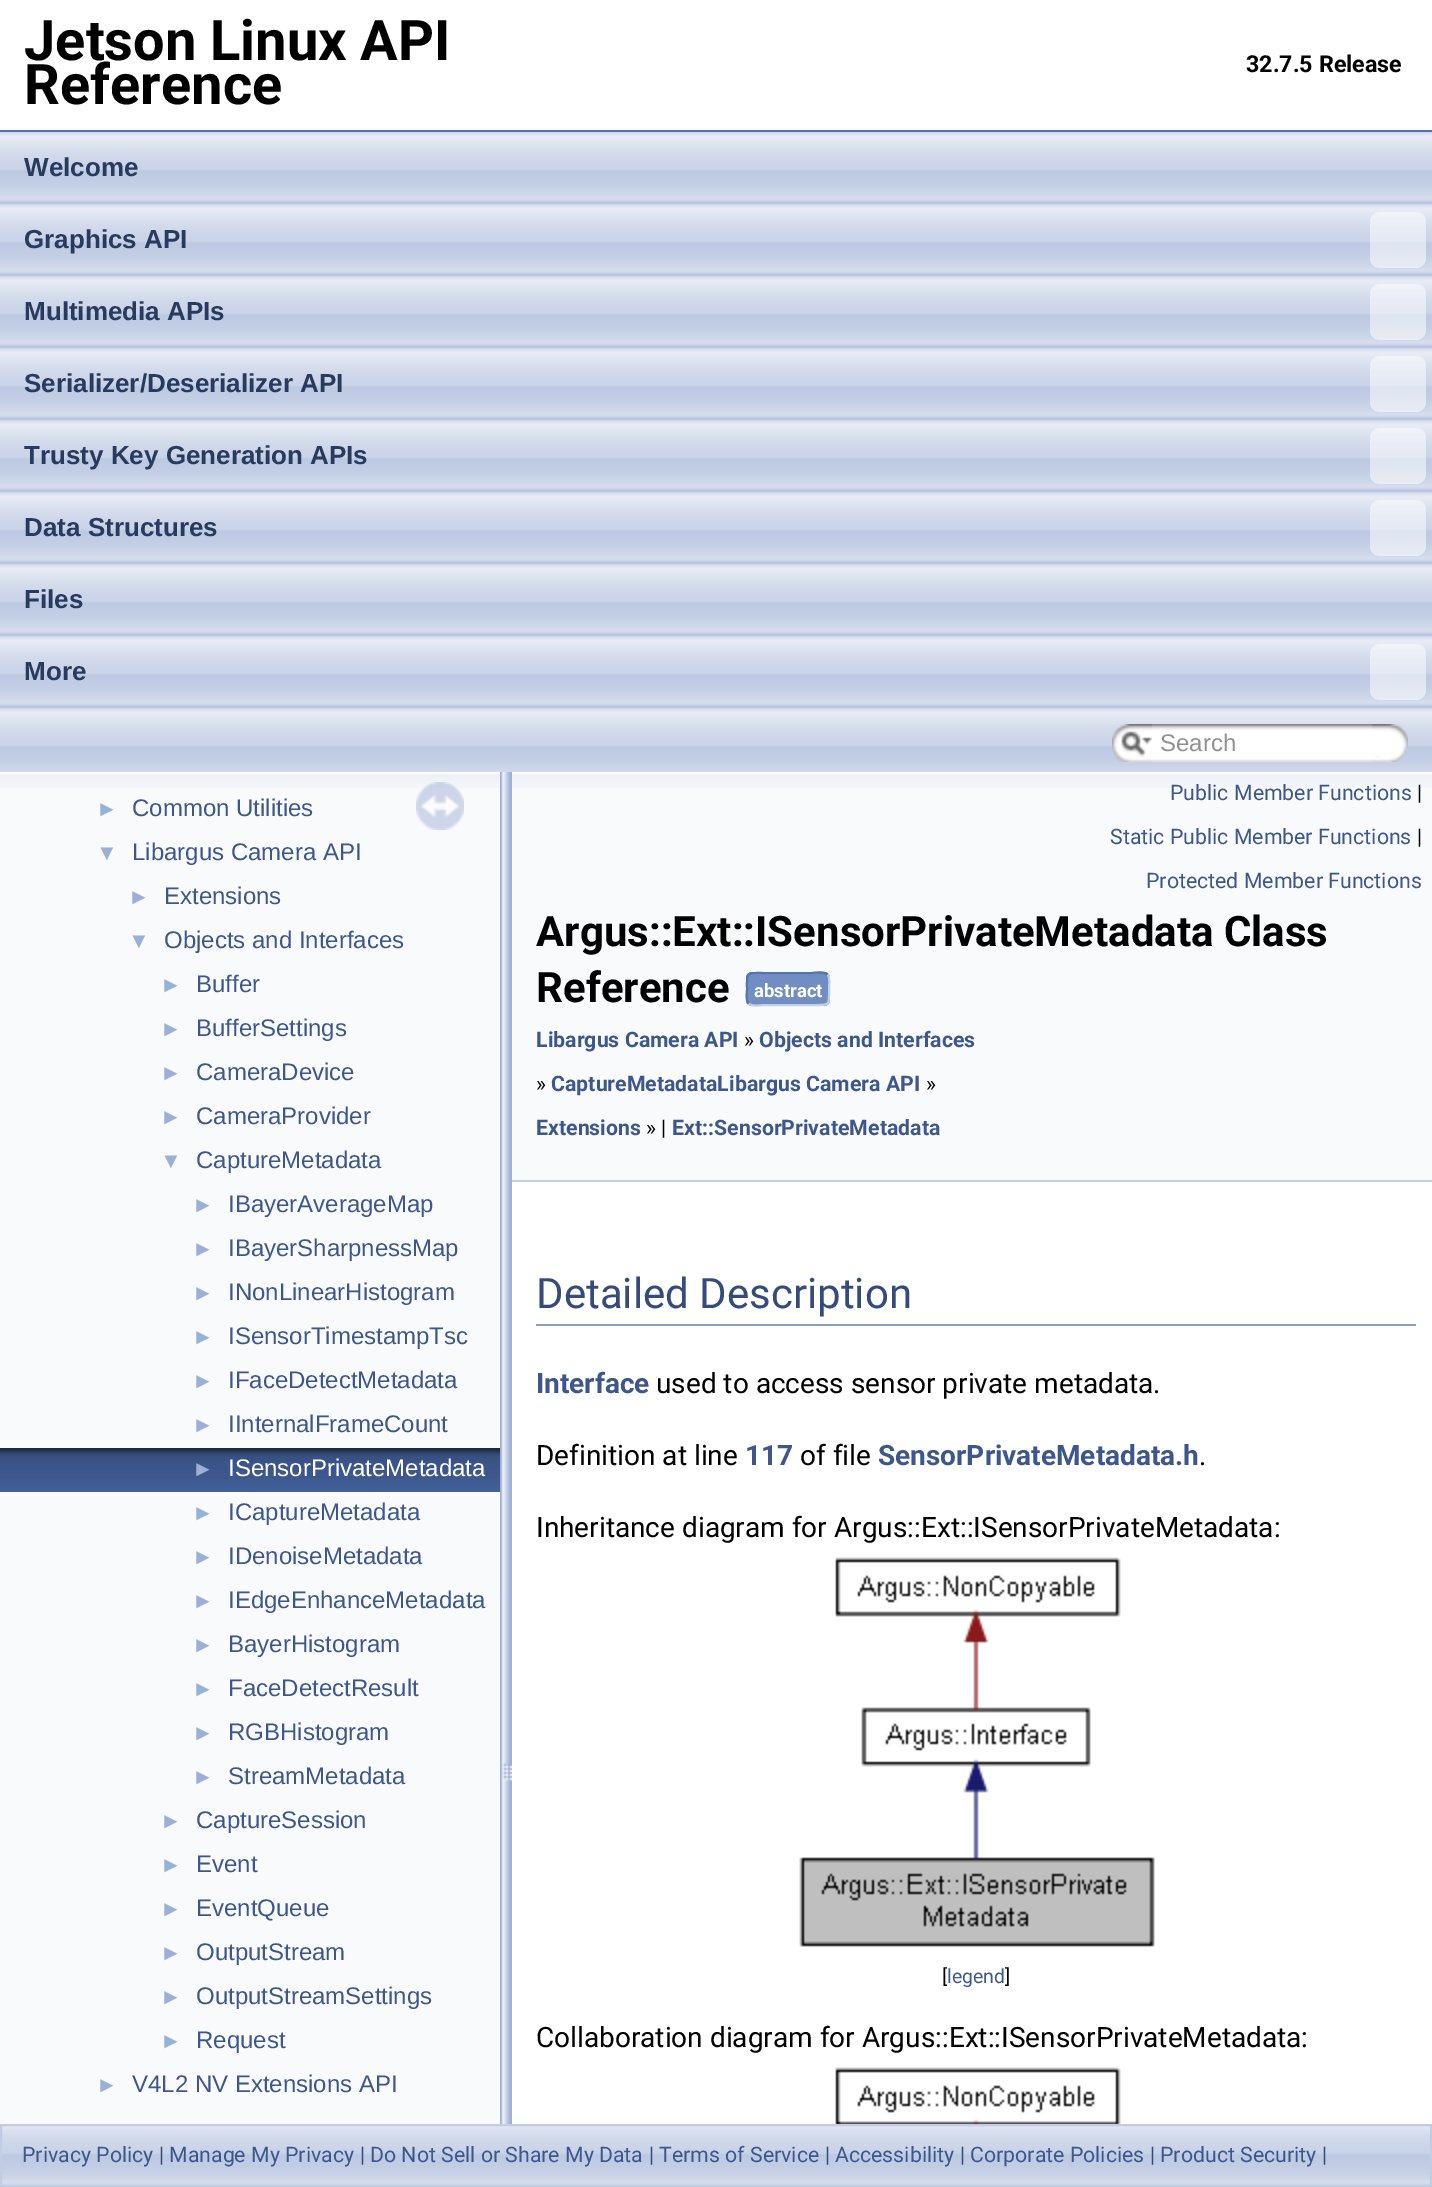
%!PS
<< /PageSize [1432 2187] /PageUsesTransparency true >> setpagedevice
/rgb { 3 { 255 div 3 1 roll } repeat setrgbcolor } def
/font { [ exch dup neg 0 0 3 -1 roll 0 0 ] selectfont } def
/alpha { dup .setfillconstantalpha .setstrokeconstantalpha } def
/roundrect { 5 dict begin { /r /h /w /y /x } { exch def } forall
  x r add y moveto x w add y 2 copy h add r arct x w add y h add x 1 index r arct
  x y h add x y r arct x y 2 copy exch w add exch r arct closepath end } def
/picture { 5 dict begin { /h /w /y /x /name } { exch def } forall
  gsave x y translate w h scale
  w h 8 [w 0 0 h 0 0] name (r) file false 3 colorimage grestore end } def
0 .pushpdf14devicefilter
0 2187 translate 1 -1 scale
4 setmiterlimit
255 255 255 rgb
0 0 1432 2187 rectfill
83 115 180 rgb
0 130 1432 2 rectfill
(img/1.rgb) 0 132 1432 640 picture
0.5 alpha
255 255 255 rgb
1370 212 56 56 10 roundrect fill
1370 284 56 56 10 roundrect fill
1370 356 56 56 10 roundrect fill
1370 428 56 56 10 roundrect fill
1370 500 56 56 10 roundrect fill
1370 644 56 56 10 roundrect fill
1 alpha
(img/2.rgb) 1112 724 40 38 picture
(img/3.rgb) 1121 731 31 26 picture
(img/4.rgb) 1152 724 220 38 picture
(img/5.rgb) 1372 724 36 38 picture
249 250 252 rgb
0 788 500 1336 rectfill
(img/6.rgb) 0 772 500 16 picture
(img/7.rgb) 416 782 48 48 picture
(img/8.rgb) 0 1448 500 44 picture
(img/9.rgb) 500 772 12 1352 picture
512 788 920 392 rectfill
(img/10.rgb) 512 772 920 16 picture
196 207 229 rgb
512 1180 920 2 rectfill
114 141 193 rgb
746 972 84 34 6 roundrect fill
196 207 229 rgb
2 setlinewidth
827.5 974.5 moveto 830.5 977.5 829 985.5 829 989 curveto 829 1006.5 830.5 1005 812 1005 curveto 764 1005 lineto 762.5 1005 752 1007 748.5 1003.5 curveto stroke
83 115 180 rgb
748.5 1003.5 moveto 745.5 1000.5 747 992.5 747 989 curveto 747 971.5 745.5 973 764 973 curveto 812 973 lineto 813.5 973 824 971 827.5 974.5 curveto stroke
135 158 203 rgb
536 1324 880 2 rectfill
(img/11.rgb) 799 1557 356 390 picture
(img/12.rgb) 835 2067 286 57 picture
(img/13.rgb) 2 2126 1428 60 picture
194 205 228 rgb
1 2125 1430 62 rectstroke
/Roboto-Bold 56 font
0 0 0 rgb
24 60 moveto (Jetson Linux API) show
24 104 moveto (Reference) show
/Roboto-Bold 23.25 font
1246 72 moveto (32.7.5 Release) show
/LiberationSans-Bold 26 font
40 58 93 rgb
[
  [(Welcome) 24 176]
  [(Graphics API) 24 248]
  [(Multimedia APIs) 24 320]
  [(Serializer/Deserializer API) 24 392]
  [(Trusty Key Generation APIs) 24 464]
  [(Data Structures) 24 536]
  [(Files) 24 608]
  [(More) 24 680]
] { aload pop moveto show } forall
/LiberationSans-Regular 24 font
144 144 144 rgb
1160 751 moveto (Search) show
/LiberationSans-Regular 22 font
156 175 212 rgb
96 816 moveto (►) show
/LiberationSans-Regular 24 font
61 87 140 rgb
132 816 moveto (Common Utilities) show
/LiberationSans-Regular 22 font
156 175 212 rgb
96 860 moveto (▼) show
/LiberationSans-Regular 24 font
61 87 140 rgb
132 860 moveto (Libargus Camera API) show
/LiberationSans-Regular 22 font
156 175 212 rgb
128 904 moveto (►) show
/LiberationSans-Regular 24 font
61 87 140 rgb
164 904 moveto (Extensions) show
/LiberationSans-Regular 22 font
156 175 212 rgb
128 948 moveto (▼) show
/LiberationSans-Regular 24 font
61 87 140 rgb
164 948 moveto (Objects and Interfaces) show
/LiberationSans-Regular 22 font
156 175 212 rgb
160 992 moveto (►) show
/LiberationSans-Regular 24 font
61 87 140 rgb
196 992 moveto (Buffer) show
/LiberationSans-Regular 22 font
156 175 212 rgb
160 1036 moveto (►) show
/LiberationSans-Regular 24 font
61 87 140 rgb
196 1036 moveto (BufferSettings) show
/LiberationSans-Regular 22 font
156 175 212 rgb
160 1080 moveto (►) show
/LiberationSans-Regular 24 font
61 87 140 rgb
196 1080 moveto (CameraDevice) show
/LiberationSans-Regular 22 font
156 175 212 rgb
160 1124 moveto (►) show
/LiberationSans-Regular 24 font
61 87 140 rgb
196 1124 moveto (CameraProvider) show
/LiberationSans-Regular 22 font
156 175 212 rgb
160 1168 moveto (▼) show
/LiberationSans-Regular 24 font
61 87 140 rgb
196 1168 moveto (CaptureMetadata) show
/LiberationSans-Regular 22 font
156 175 212 rgb
192 1212 moveto (►) show
/LiberationSans-Regular 24 font
61 87 140 rgb
228 1212 moveto (IBayerAverageMap) show
/LiberationSans-Regular 22 font
156 175 212 rgb
192 1256 moveto (►) show
/LiberationSans-Regular 24 font
61 87 140 rgb
228 1256 moveto (IBayerSharpnessMap) show
/LiberationSans-Regular 22 font
156 175 212 rgb
192 1300 moveto (►) show
/LiberationSans-Regular 24 font
61 87 140 rgb
228 1300 moveto (INonLinearHistogram) show
/LiberationSans-Regular 22 font
156 175 212 rgb
192 1344 moveto (►) show
/LiberationSans-Regular 24 font
61 87 140 rgb
228 1344 moveto (ISensorTimestampTsc) show
/LiberationSans-Regular 22 font
156 175 212 rgb
192 1388 moveto (►) show
/LiberationSans-Regular 24 font
61 87 140 rgb
228 1388 moveto (IFaceDetectMetadata) show
/LiberationSans-Regular 22 font
156 175 212 rgb
192 1432 moveto (►) show
/LiberationSans-Regular 24 font
61 87 140 rgb
228 1432 moveto (IInternalFrameCount) show
/LiberationSans-Regular 22 font
156 175 212 rgb
192 1476 moveto (►) show
/LiberationSans-Regular 24 font
255 255 255 rgb
228 1476 moveto (ISensorPrivateMetadata) show
/LiberationSans-Regular 22 font
156 175 212 rgb
192 1520 moveto (►) show
/LiberationSans-Regular 24 font
61 87 140 rgb
228 1520 moveto (ICaptureMetadata) show
/LiberationSans-Regular 22 font
156 175 212 rgb
192 1564 moveto (►) show
/LiberationSans-Regular 24 font
61 87 140 rgb
228 1564 moveto (IDenoiseMetadata) show
/LiberationSans-Regular 22 font
156 175 212 rgb
192 1608 moveto (►) show
/LiberationSans-Regular 24 font
61 87 140 rgb
228 1608 moveto (IEdgeEnhanceMetadata) show
/LiberationSans-Regular 22 font
156 175 212 rgb
192 1652 moveto (►) show
/LiberationSans-Regular 24 font
61 87 140 rgb
228 1652 moveto (BayerHistogram) show
/LiberationSans-Regular 22 font
156 175 212 rgb
192 1696 moveto (►) show
/LiberationSans-Regular 24 font
61 87 140 rgb
228 1696 moveto (FaceDetectResult) show
/LiberationSans-Regular 22 font
156 175 212 rgb
192 1740 moveto (►) show
/LiberationSans-Regular 24 font
61 87 140 rgb
228 1740 moveto (RGBHistogram) show
/LiberationSans-Regular 22 font
156 175 212 rgb
192 1784 moveto (►) show
/LiberationSans-Regular 24 font
61 87 140 rgb
228 1784 moveto (StreamMetadata) show
/LiberationSans-Regular 22 font
156 175 212 rgb
160 1828 moveto (►) show
/LiberationSans-Regular 24 font
61 87 140 rgb
196 1828 moveto (CaptureSession) show
/LiberationSans-Regular 22 font
156 175 212 rgb
160 1872 moveto (►) show
/LiberationSans-Regular 24 font
61 87 140 rgb
196 1872 moveto (Event) show
/LiberationSans-Regular 22 font
156 175 212 rgb
160 1916 moveto (►) show
/LiberationSans-Regular 24 font
61 87 140 rgb
196 1916 moveto (EventQueue) show
/LiberationSans-Regular 22 font
156 175 212 rgb
160 1960 moveto (►) show
/LiberationSans-Regular 24 font
61 87 140 rgb
196 1960 moveto (OutputStream) show
/LiberationSans-Regular 22 font
156 175 212 rgb
160 2004 moveto (►) show
/LiberationSans-Regular 24 font
61 87 140 rgb
196 2004 moveto (OutputStreamSettings) show
/LiberationSans-Regular 22 font
156 175 212 rgb
160 2048 moveto (►) show
/LiberationSans-Regular 24 font
61 87 140 rgb
196 2048 moveto (Request) show
/LiberationSans-Regular 22 font
156 175 212 rgb
96 2092 moveto (►) show
/LiberationSans-Regular 24 font
61 87 140 rgb
132 2092 moveto (V4L2 NV Extensions API) show
/Roboto-Regular 21.3 font
1170 800 moveto (Public Member Functions) show
0 0 0 rgb
1417 800 moveto (|) show
61 87 140 rgb
1110 844 moveto (Static Public Member Functions) show
0 0 0 rgb
1417 844 moveto (|) show
61 87 140 rgb
1146 888 moveto (Protected Member Functions) show
/Roboto-Bold 42 font
0 0 0 rgb
536 946 moveto (Argus::Ext::ISensorPrivateMetadata Class) show
536 1002 moveto (Reference) show
/Roboto-Bold 18.5 font
255 255 255 rgb
754 997 moveto (abstract) show
/Roboto-Bold 21.3 font
61 87 140 rgb
536 1047 moveto (Libargus Camera API) show
/Roboto-Regular 21.3 font
0 0 0 rgb
744 1047 moveto (») show
/Roboto-Bold 21.3 font
61 87 140 rgb
759 1047 moveto (Objects and Interfaces) show
/Roboto-Regular 21.3 font
0 0 0 rgb
536 1091 moveto (») show
/Roboto-Bold 21.3 font
61 87 140 rgb
551 1091 moveto (CaptureMetadataLibargus Camera API) show
/Roboto-Regular 21.3 font
0 0 0 rgb
926 1091 moveto (») show
/Roboto-Bold 21.3 font
61 87 140 rgb
536 1135 moveto (Extensions) show
/Roboto-Regular 21.3 font
0 0 0 rgb
646 1135 moveto (» |) show
/Roboto-Bold 21.3 font
61 87 140 rgb
672 1135 moveto (Ext::SensorPrivateMetadata) show
/Roboto-Regular 42 font
53 76 123 rgb
536 1308 moveto (Detailed Description) show
/Roboto-Bold 28 font
61 87 140 rgb
536 1393 moveto (Interface) show
/Roboto-Regular 28 font
0 0 0 rgb
656 1393 moveto (used to access sensor private metadata.) show
536 1465 moveto (Definition at line) show
/Roboto-Bold 28 font
61 87 140 rgb
745 1465 moveto (117) show
/Roboto-Regular 28 font
0 0 0 rgb
800 1465 moveto (of file) show
/Roboto-Bold 28 font
61 87 140 rgb
878 1465 moveto (SensorPrivateMetadata.h) show
/Roboto-Regular 28 font
0 0 0 rgb
1199 1465 moveto (.) show
536 1537 moveto (Inheritance diagram for Argus::Ext::ISensorPrivateMetadata:) show
/Roboto-Regular 19.5 font
942 1983 moveto ([) show
61 87 140 rgb
947 1983 moveto (legend) show
0 0 0 rgb
1005 1983 moveto (]) show
/Roboto-Regular 28 font
536 2047 moveto (Collaboration diagram for Argus::Ext::ISensorPrivateMetadata:) show
/Roboto-Regular 21.3 font
61 87 140 rgb
22 2162 moveto (Privacy Policy) show
53 76 123 rgb
159 2162 moveto (|) show
61 87 140 rgb
169 2162 moveto (Manage My Privacy) show
53 76 123 rgb
360 2162 moveto (|) show
61 87 140 rgb
370 2162 moveto (Do Not Sell or Share My Data) show
53 76 123 rgb
649 2162 moveto (|) show
61 87 140 rgb
659 2162 moveto (Terms of Service) show
53 76 123 rgb
825 2162 moveto (|) show
61 87 140 rgb
835 2162 moveto (Accessibility) show
53 76 123 rgb
960 2162 moveto (|) show
61 87 140 rgb
970 2162 moveto (Corporate Policies) show
53 76 123 rgb
1150 2162 moveto (|) show
61 87 140 rgb
1160 2162 moveto (Product Security) show
53 76 123 rgb
1322 2162 moveto (|) show
.poppdf14devicefilter showpage
